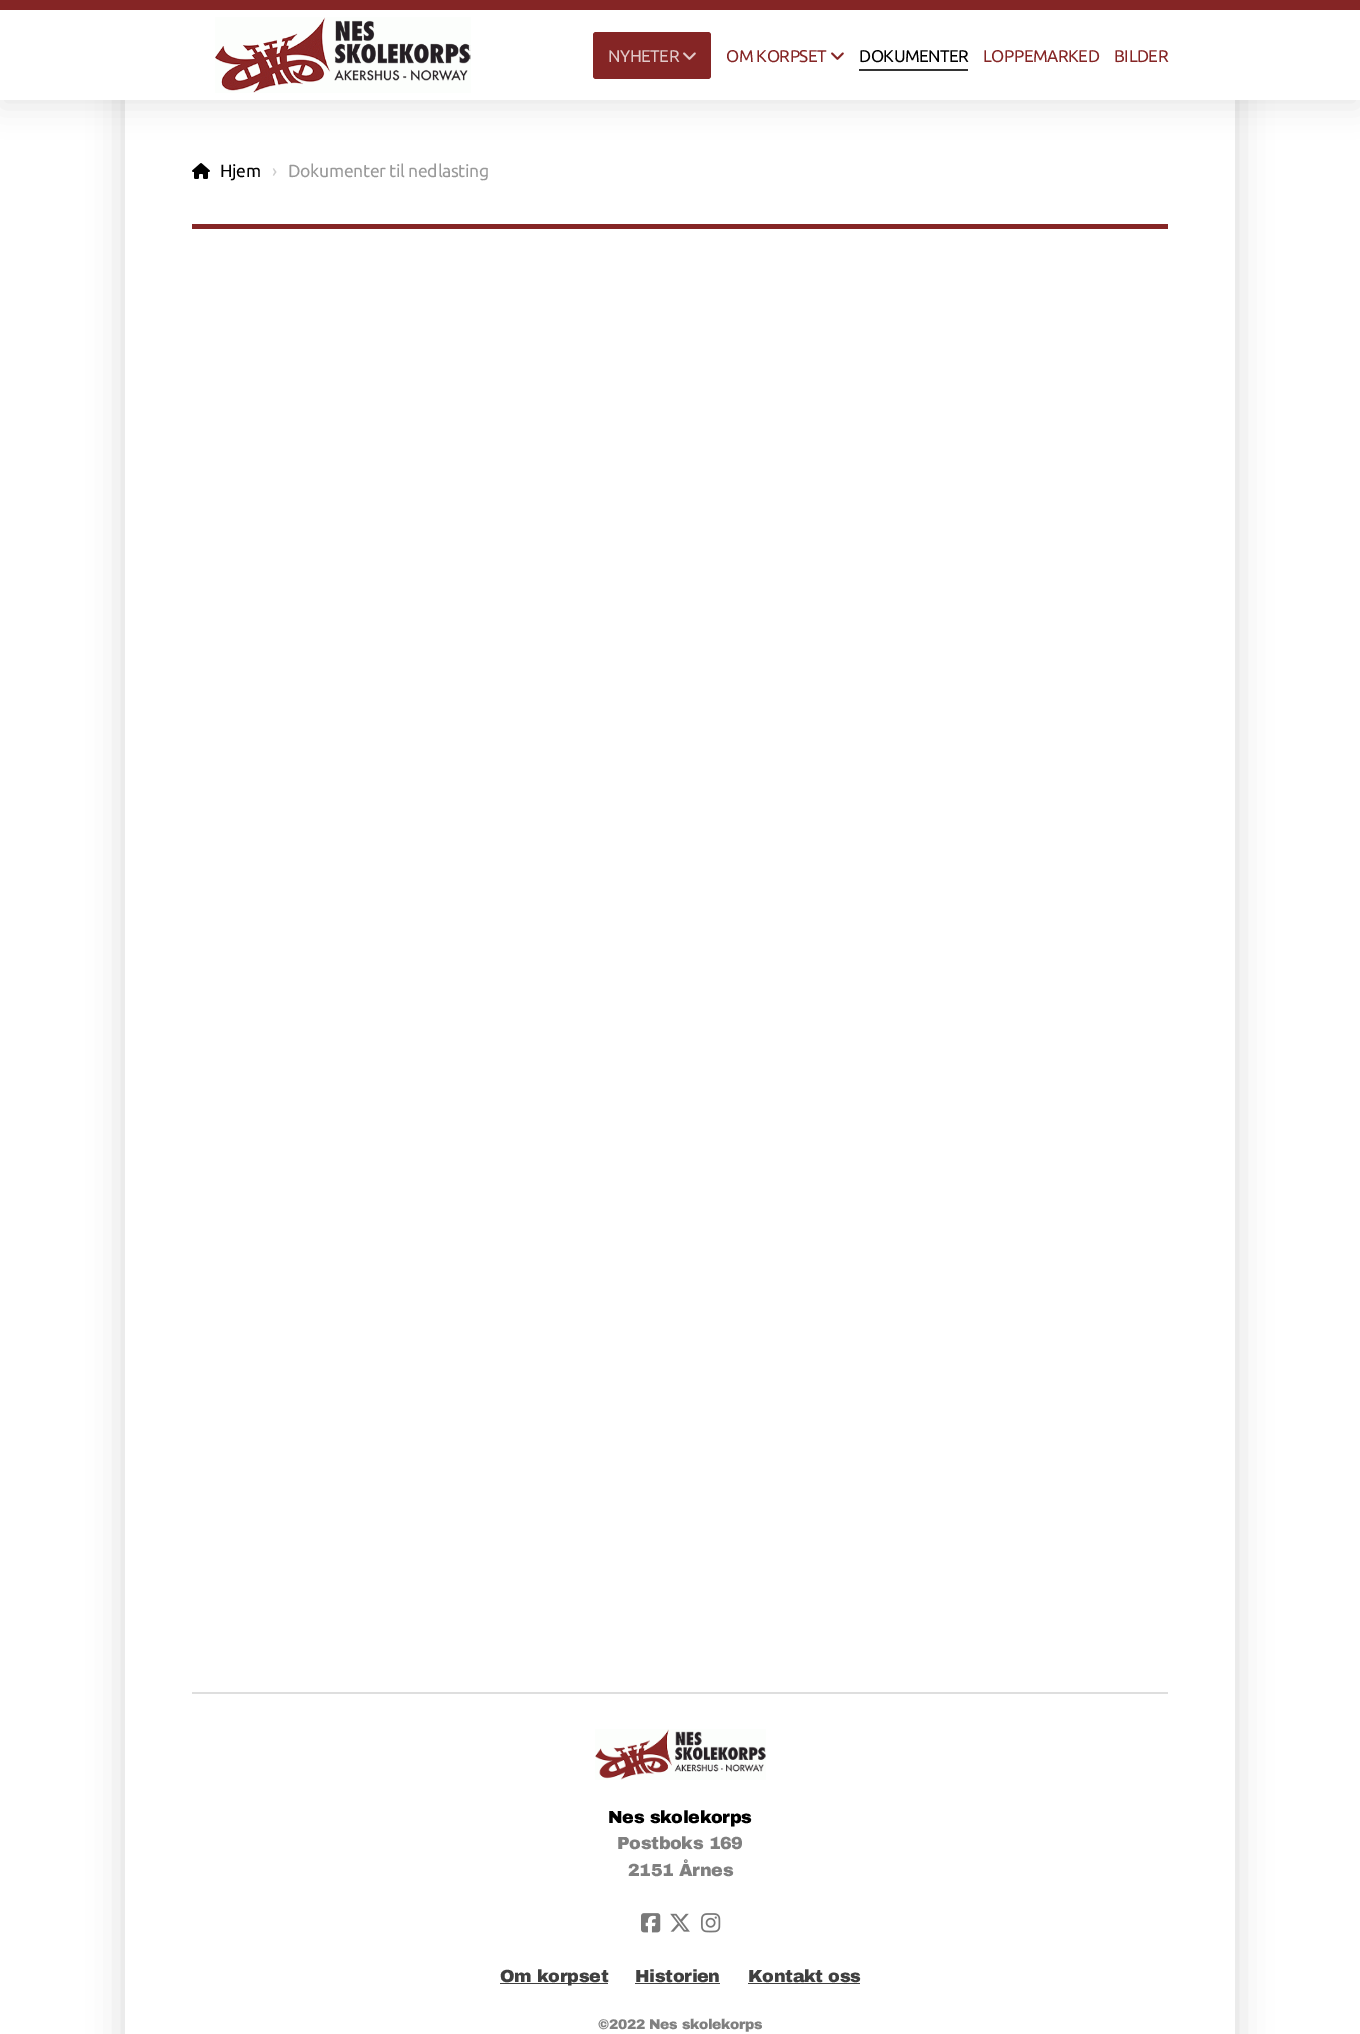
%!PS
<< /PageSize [1360 2034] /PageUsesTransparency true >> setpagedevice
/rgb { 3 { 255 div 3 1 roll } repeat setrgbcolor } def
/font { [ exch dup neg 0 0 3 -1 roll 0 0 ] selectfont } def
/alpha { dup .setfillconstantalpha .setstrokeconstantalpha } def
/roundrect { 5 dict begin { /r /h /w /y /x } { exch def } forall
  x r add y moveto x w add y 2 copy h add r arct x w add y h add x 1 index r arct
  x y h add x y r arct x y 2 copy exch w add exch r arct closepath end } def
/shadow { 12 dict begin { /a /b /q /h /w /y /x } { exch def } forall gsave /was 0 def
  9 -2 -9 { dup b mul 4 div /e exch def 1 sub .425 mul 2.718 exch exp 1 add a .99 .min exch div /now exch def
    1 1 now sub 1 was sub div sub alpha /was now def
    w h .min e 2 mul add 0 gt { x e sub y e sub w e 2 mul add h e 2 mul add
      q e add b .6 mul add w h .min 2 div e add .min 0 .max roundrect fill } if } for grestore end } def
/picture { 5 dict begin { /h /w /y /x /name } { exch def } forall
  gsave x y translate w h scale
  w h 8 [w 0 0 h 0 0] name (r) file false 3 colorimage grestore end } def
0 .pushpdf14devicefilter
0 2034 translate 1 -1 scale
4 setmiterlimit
255 255 255 rgb
0 0 1360 2034 rectfill
gsave
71 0 moveto 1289 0 lineto 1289 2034 lineto 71 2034 lineto closepath 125 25 moveto 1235 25 lineto 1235 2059 lineto 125 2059 lineto closepath eoclip newpath
0 0 0 rgb
125 25 1110 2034 0 17.5 0.15 shadow
grestore
0 0 0 rgb
0 7 1360 100 0 14.5 0.09 shadow
255 255 255 rgb
0 10 1360 90 rectfill
133 37 37 rgb
0 0 1360 10 rectfill
(img/1.rgb) 215 17 256 76 picture
593 32 118 47 3 roundrect fill
(img/2.rgb) 683 52 13 8 picture
(img/3.rgb) 831 52 13 8 picture
51 51 51 rgb
859 69 109 2 rectfill
(img/4.rgb) 192 163 18 16 picture
133 37 37 rgb
192 224 976 5 rectfill
222 222 222 rgb
192 1692 976 2 rectfill
(img/5.rgb) 595 1729 171 51 picture
(img/6.rgb) 641 1913 20 20 picture
(img/7.rgb) 670 1913 20 19 picture
(img/8.rgb) 701 1913 20 20 picture
[
  [500 1983 108 1 64 64 64]
  [635 1983 85 1 64 64 64]
  [748 1983 112 1 64 64 64]
] { aload pop rgb rectfill } forall
/Ubuntu-Regular 17 font
225 201 201 rgb
608 62 moveto -0.5 0 (NYHETER) ashow
133 37 37 rgb
726 62 moveto -0.5 0 (OM KORPSET) ashow
0 0 0 rgb
859 62 moveto -0.5 0 (DOKUMENTER) ashow
133 37 37 rgb
983 62 moveto -0.5 0 (LOPPEMARKED) ashow
1114 62 moveto -0.5 0 (BILDER) ashow
/Ubuntu-Regular 17.6 font
0 0 0 rgb
220 177 moveto -0.35 0 (Hjem) ashow
204 204 204 rgb
272 177 moveto -0.35 0 (›) ashow
153 153 153 rgb
288 177 moveto -0.35 0 (Dokumenter til nedlasting) ashow
/ArchivoBlack-Black 17.6 font
0 0 0 rgb
608 1823 moveto -0.35 0 (Nes skolekorps) ashow
128 128 128 rgb
617 1849 moveto -0.35 0 (Postboks 169) ashow
628 1876 moveto -0.35 0 (2151 Årnes) ashow
64 64 64 rgb
500 1982 moveto -0.35 0 (Om korpset) ashow
635 1982 moveto -0.35 0 (Historien) ashow
748 1982 moveto -0.35 0 (Kontakt oss) ashow
/ArchivoBlack-Black 14 font
128 128 128 rgb
598 2029 moveto -0.35 0 (©2022 Nes skolekorps) ashow
.poppdf14devicefilter showpage
